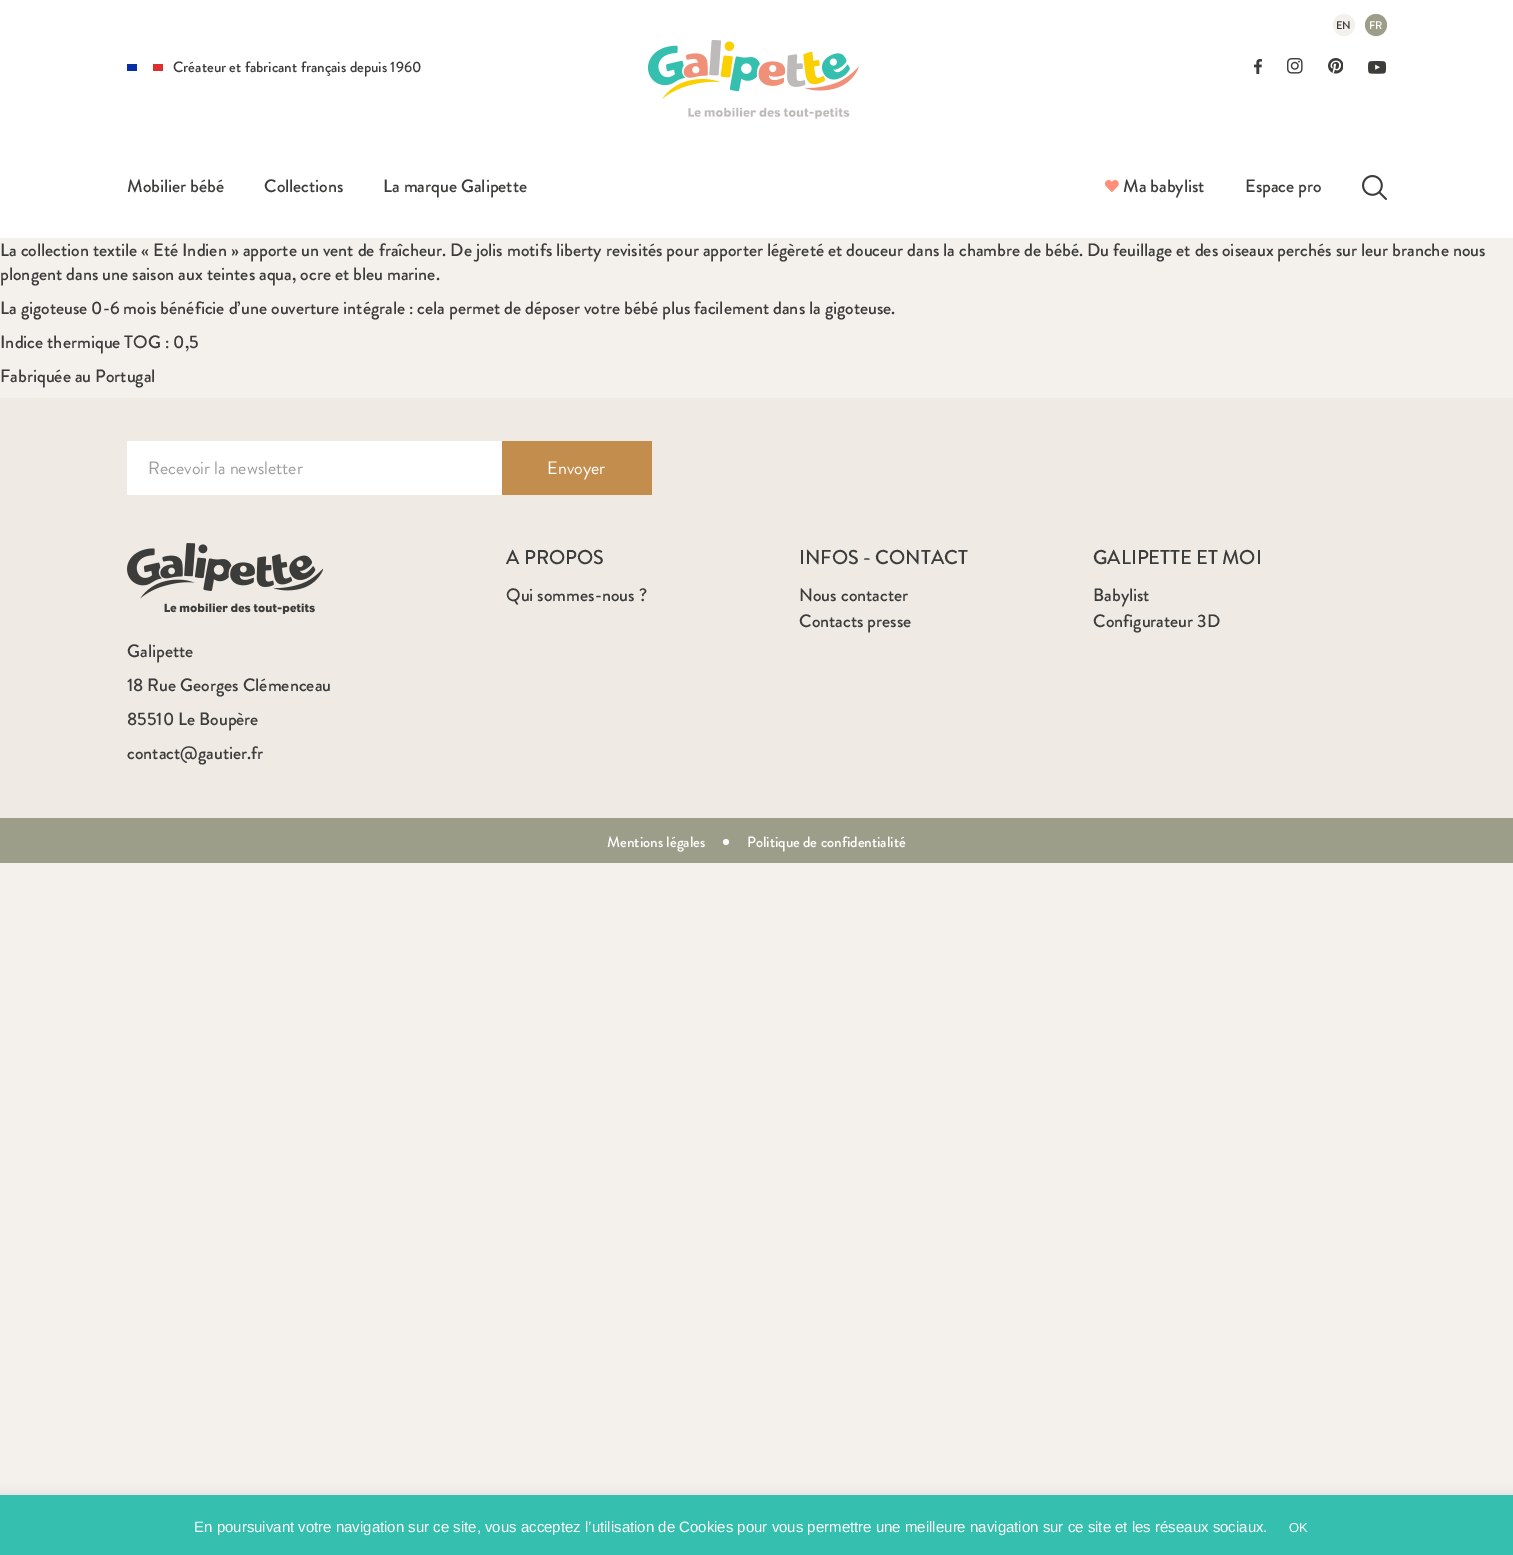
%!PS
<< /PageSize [1513 1555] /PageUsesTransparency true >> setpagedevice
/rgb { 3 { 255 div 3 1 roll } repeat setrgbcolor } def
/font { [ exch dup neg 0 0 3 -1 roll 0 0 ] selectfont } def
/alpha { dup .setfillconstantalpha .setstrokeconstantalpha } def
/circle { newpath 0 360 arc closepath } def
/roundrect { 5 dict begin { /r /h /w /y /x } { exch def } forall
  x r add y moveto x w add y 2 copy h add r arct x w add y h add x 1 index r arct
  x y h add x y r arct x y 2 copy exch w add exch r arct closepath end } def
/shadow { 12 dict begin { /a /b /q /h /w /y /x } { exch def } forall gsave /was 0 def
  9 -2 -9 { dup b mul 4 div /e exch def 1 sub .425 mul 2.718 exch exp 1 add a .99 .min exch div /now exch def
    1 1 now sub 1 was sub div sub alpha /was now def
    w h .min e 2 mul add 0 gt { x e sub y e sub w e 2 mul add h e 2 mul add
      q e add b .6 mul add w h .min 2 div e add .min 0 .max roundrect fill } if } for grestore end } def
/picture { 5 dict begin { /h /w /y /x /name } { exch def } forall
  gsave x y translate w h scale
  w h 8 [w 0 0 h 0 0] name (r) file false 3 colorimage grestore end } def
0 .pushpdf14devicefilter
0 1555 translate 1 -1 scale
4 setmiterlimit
244 240 236 rgb
0 0 1513 1555 rectfill
255 255 255 rgb
0 0 1513 238 rectfill
244 240 236 rgb
1344 25 11 circle fill
157 158 138 rgb
1376 25 11 circle fill
(img/1.rgb) 1254 59 8 15 picture
(img/2.rgb) 1287 58 16 16 picture
(img/3.rgb) 1328 58 15 16 picture
(img/4.rgb) 1368 61 19 13 picture
5 48 165 rgb
127 64 10 7 rectfill
222 46 46 rgb
153 64 10 7 rectfill
(img/5.rgb) 648 40 211 79 picture
(img/6.rgb) 1105 180 14 12 picture
(img/7.rgb) 1362 175 25 25 picture
[
  [0 398 1513 420 239 234 228]
  [127 441 375 54 255 255 255]
  [502 441 150 54 195 141 78]
] { aload pop rgb rectfill } forall
(img/8.rgb) 127 543 196 71 picture
157 158 138 rgb
0 818 1513 45 rectfill
255 255 255 rgb
726 842 3 circle fill
172 171 171 rgb
0 1494 1513 60 0 5 0.3 shadow
53 191 174 rgb
0 1495 1513 60 rectfill
/BrandonGrotesque-Medium 11 font
60 60 59 rgb
1336 29 moveto (EN) show
255 255 255 rgb
1369 29 moveto (FR) show
/BrandonGrotesque-Medium 15 font
60 60 59 rgb
173 72 moveto (Créateur et fabricant français depuis 1960) show
/BrandonGrotesque-Medium 18 font
[
  [(Mobilier bébé) 127 192]
  [(Collections) 264 192]
  [(La marque Galipette) 383 192]
  [(Ma babylist) 1123 192]
  [(Espace pro) 1245 192]
  [(La collection textile « Eté Indien » apporte un vent de fraîcheur. De jolis motifs liberty revisités pour apporter légèreté et douceur dans la chambre de bébé. Du feuillage et des oiseaux perchés sur leur branche nous) 0 256]
  [(plongent dans une saison aux teintes aqua, ocre et bleu marine.) 0 280]
  [(La gigoteuse 0-6 mois bénéficie d’une ouverture intégrale : cela permet de déposer votre bébé plus facilement dans la gigoteuse.) 0 314]
  [(Indice thermique TOG : 0,5) 0 348]
  [(Fabriquée au Portugal) 0 382]
] { aload pop moveto show } forall
/BrandonGrotesque-Regular 18 font
158 158 157 rgb
148 474 moveto (Recevoir la newsletter) show
255 255 255 rgb
547 474 moveto (Envoyer) show
/BrandonGrotesque-Medium 20 font
60 60 59 rgb
506 564 moveto (A PROPOS) show
/BrandonGrotesque-Medium 18 font
506 601 moveto (Qui sommes-nous ?) show
/BrandonGrotesque-Medium 20 font
799 564 moveto (INFOS - CONTACT) show
/BrandonGrotesque-Medium 18 font
799 601 moveto (Nous contacter) show
799 627 moveto (Contacts presse) show
/BrandonGrotesque-Medium 20 font
1093 564 moveto (GALIPETTE ET MOI) show
/BrandonGrotesque-Medium 18 font
[
  [(Babylist) 1093 601]
  [(Configurateur 3D) 1093 627]
  [(Galipette) 127 657]
  [(18 Rue Georges Clémenceau) 127 691]
  [(85510 Le Boupère) 127 725]
  [(contact@gautier.fr) 127 759]
] { aload pop moveto show } forall
/BrandonGrotesque-Medium 15 font
255 255 255 rgb
607 847 moveto (Mentions légales) show
747 847 moveto (Politique de confidentialité) show
/LiberationSans-Regular 15 font
194 1532 moveto (En poursuivant votre navigation sur ce site, vous acceptez l’utilisation de Cookies pour vous permettre une meilleure navigation sur ce site et les réseaux sociaux.) show
/LiberationSans-Regular 13 font
1289 1532 moveto (OK) show
.poppdf14devicefilter showpage
